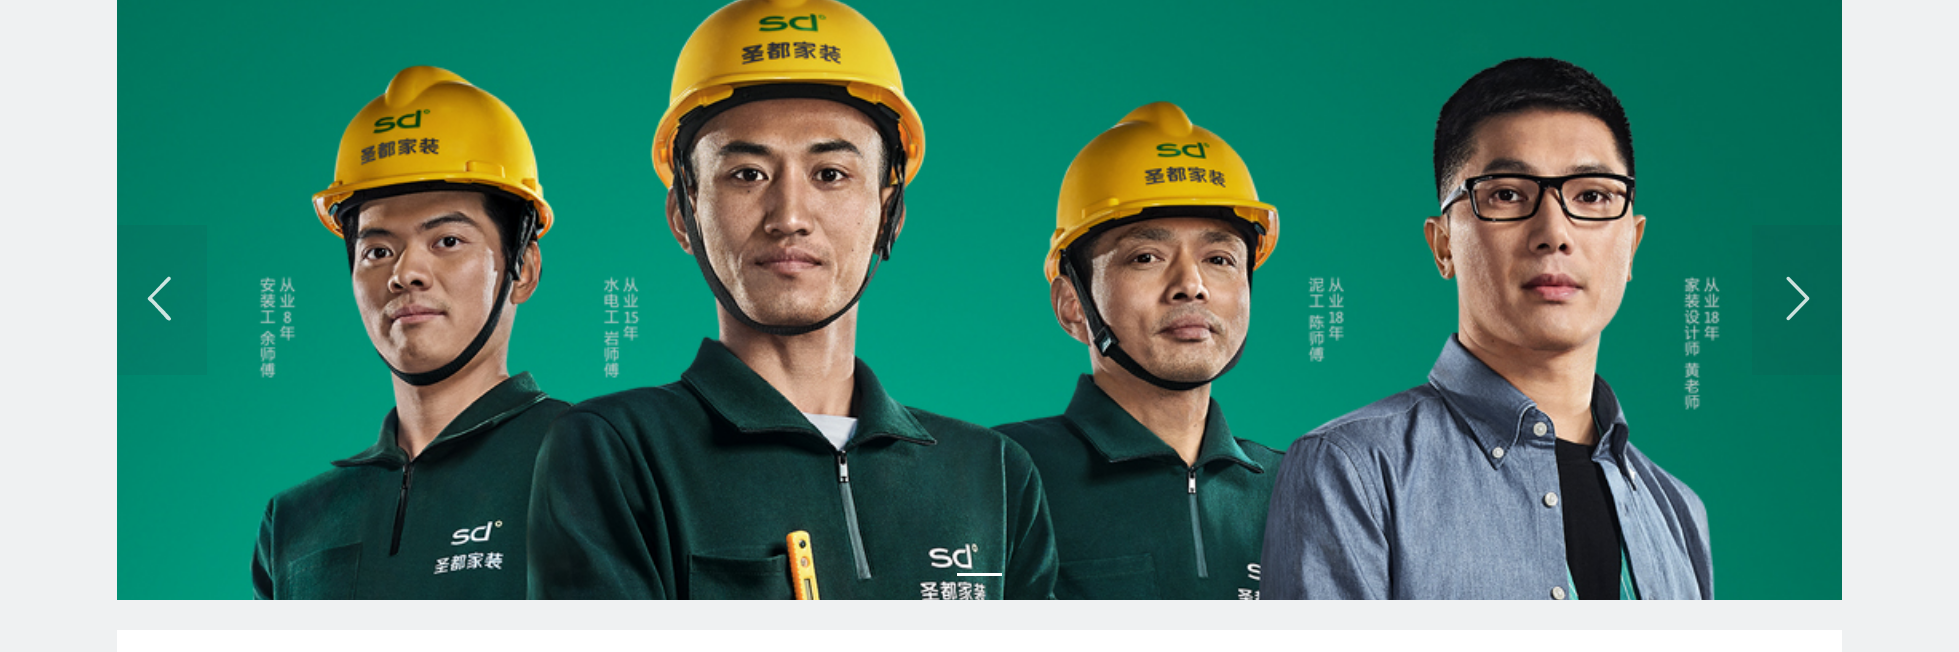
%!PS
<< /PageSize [1959 652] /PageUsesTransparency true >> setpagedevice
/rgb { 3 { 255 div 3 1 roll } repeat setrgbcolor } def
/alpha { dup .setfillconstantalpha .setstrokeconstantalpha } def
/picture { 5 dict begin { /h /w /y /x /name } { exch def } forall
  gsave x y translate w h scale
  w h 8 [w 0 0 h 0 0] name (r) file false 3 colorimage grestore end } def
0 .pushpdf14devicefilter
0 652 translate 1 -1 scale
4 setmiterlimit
239 241 242 rgb
0 0 1959 652 rectfill
(img/1.rgb) 117 0 1725 600 picture
0.09 alpha
31 45 61 rgb
117 225 90 150 rectfill
0.8 alpha
255 255 255 rgb
168 277 moveto 152 294 lineto 147 299 146 298 152 303 curveto 164 316 lineto 165 317 169 323 171 319 curveto 171 317 154 301 152 298 curveto 170 280 lineto 172 278 169 276 168 277 curveto closepath fill
0.09 alpha
31 45 61 rgb
1752 225 90 150 rectfill
1 alpha
(img/2.rgb) 1786 276 24 45 picture
255 255 255 rgb
957 573 45 3 rectfill
117 630 1725 22 rectfill
.poppdf14devicefilter showpage
